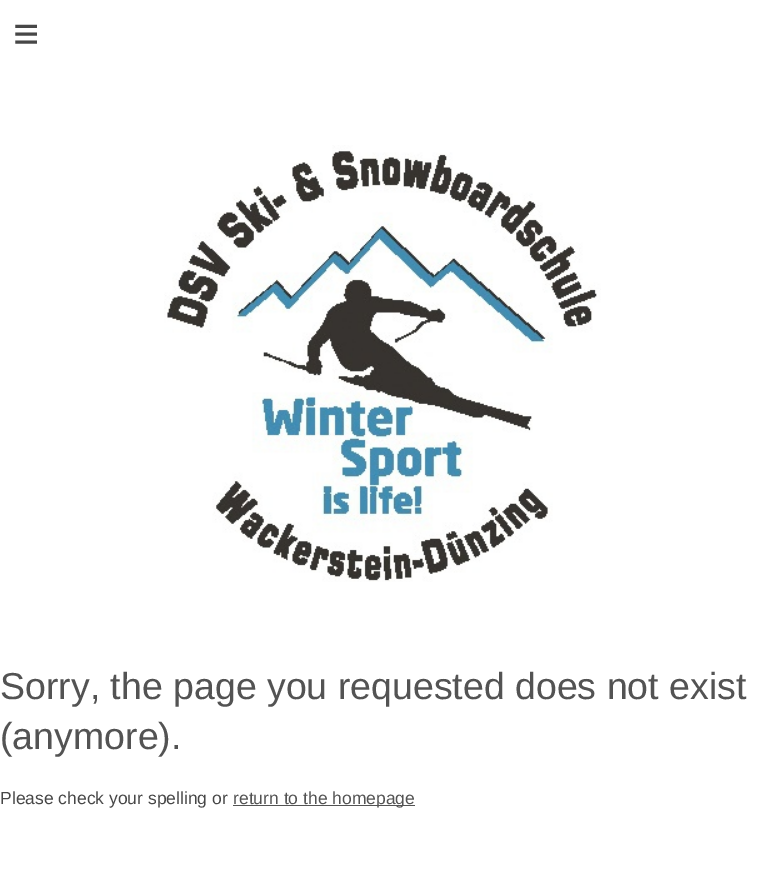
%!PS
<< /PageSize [766 871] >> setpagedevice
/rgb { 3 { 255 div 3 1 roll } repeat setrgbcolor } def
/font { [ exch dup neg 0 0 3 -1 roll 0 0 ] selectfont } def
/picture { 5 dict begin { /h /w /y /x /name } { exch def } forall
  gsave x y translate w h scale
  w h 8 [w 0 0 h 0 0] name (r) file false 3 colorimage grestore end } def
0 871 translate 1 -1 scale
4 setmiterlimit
255 255 255 rgb
0 0 766 871 rectfill
(img/1.rgb) 164 145 437 437 picture
83 83 83 rgb
233 805 182 1 rectfill
/LiberationSans-Regular 45 font
71 71 71 rgb
13 49 moveto 13 0 (≡) ashow
/LiberationSans-Regular 37.5 font
83 83 83 rgb
0 699 moveto (Sorry, the page you requested does not exist) show
0 749 moveto (\(anymore\).) show
/LiberationSans-Regular 17.5 font
71 71 71 rgb
0 804 moveto (Please check your spelling or) show
83 83 83 rgb
233 804 moveto (return to the homepage) show
showpage
